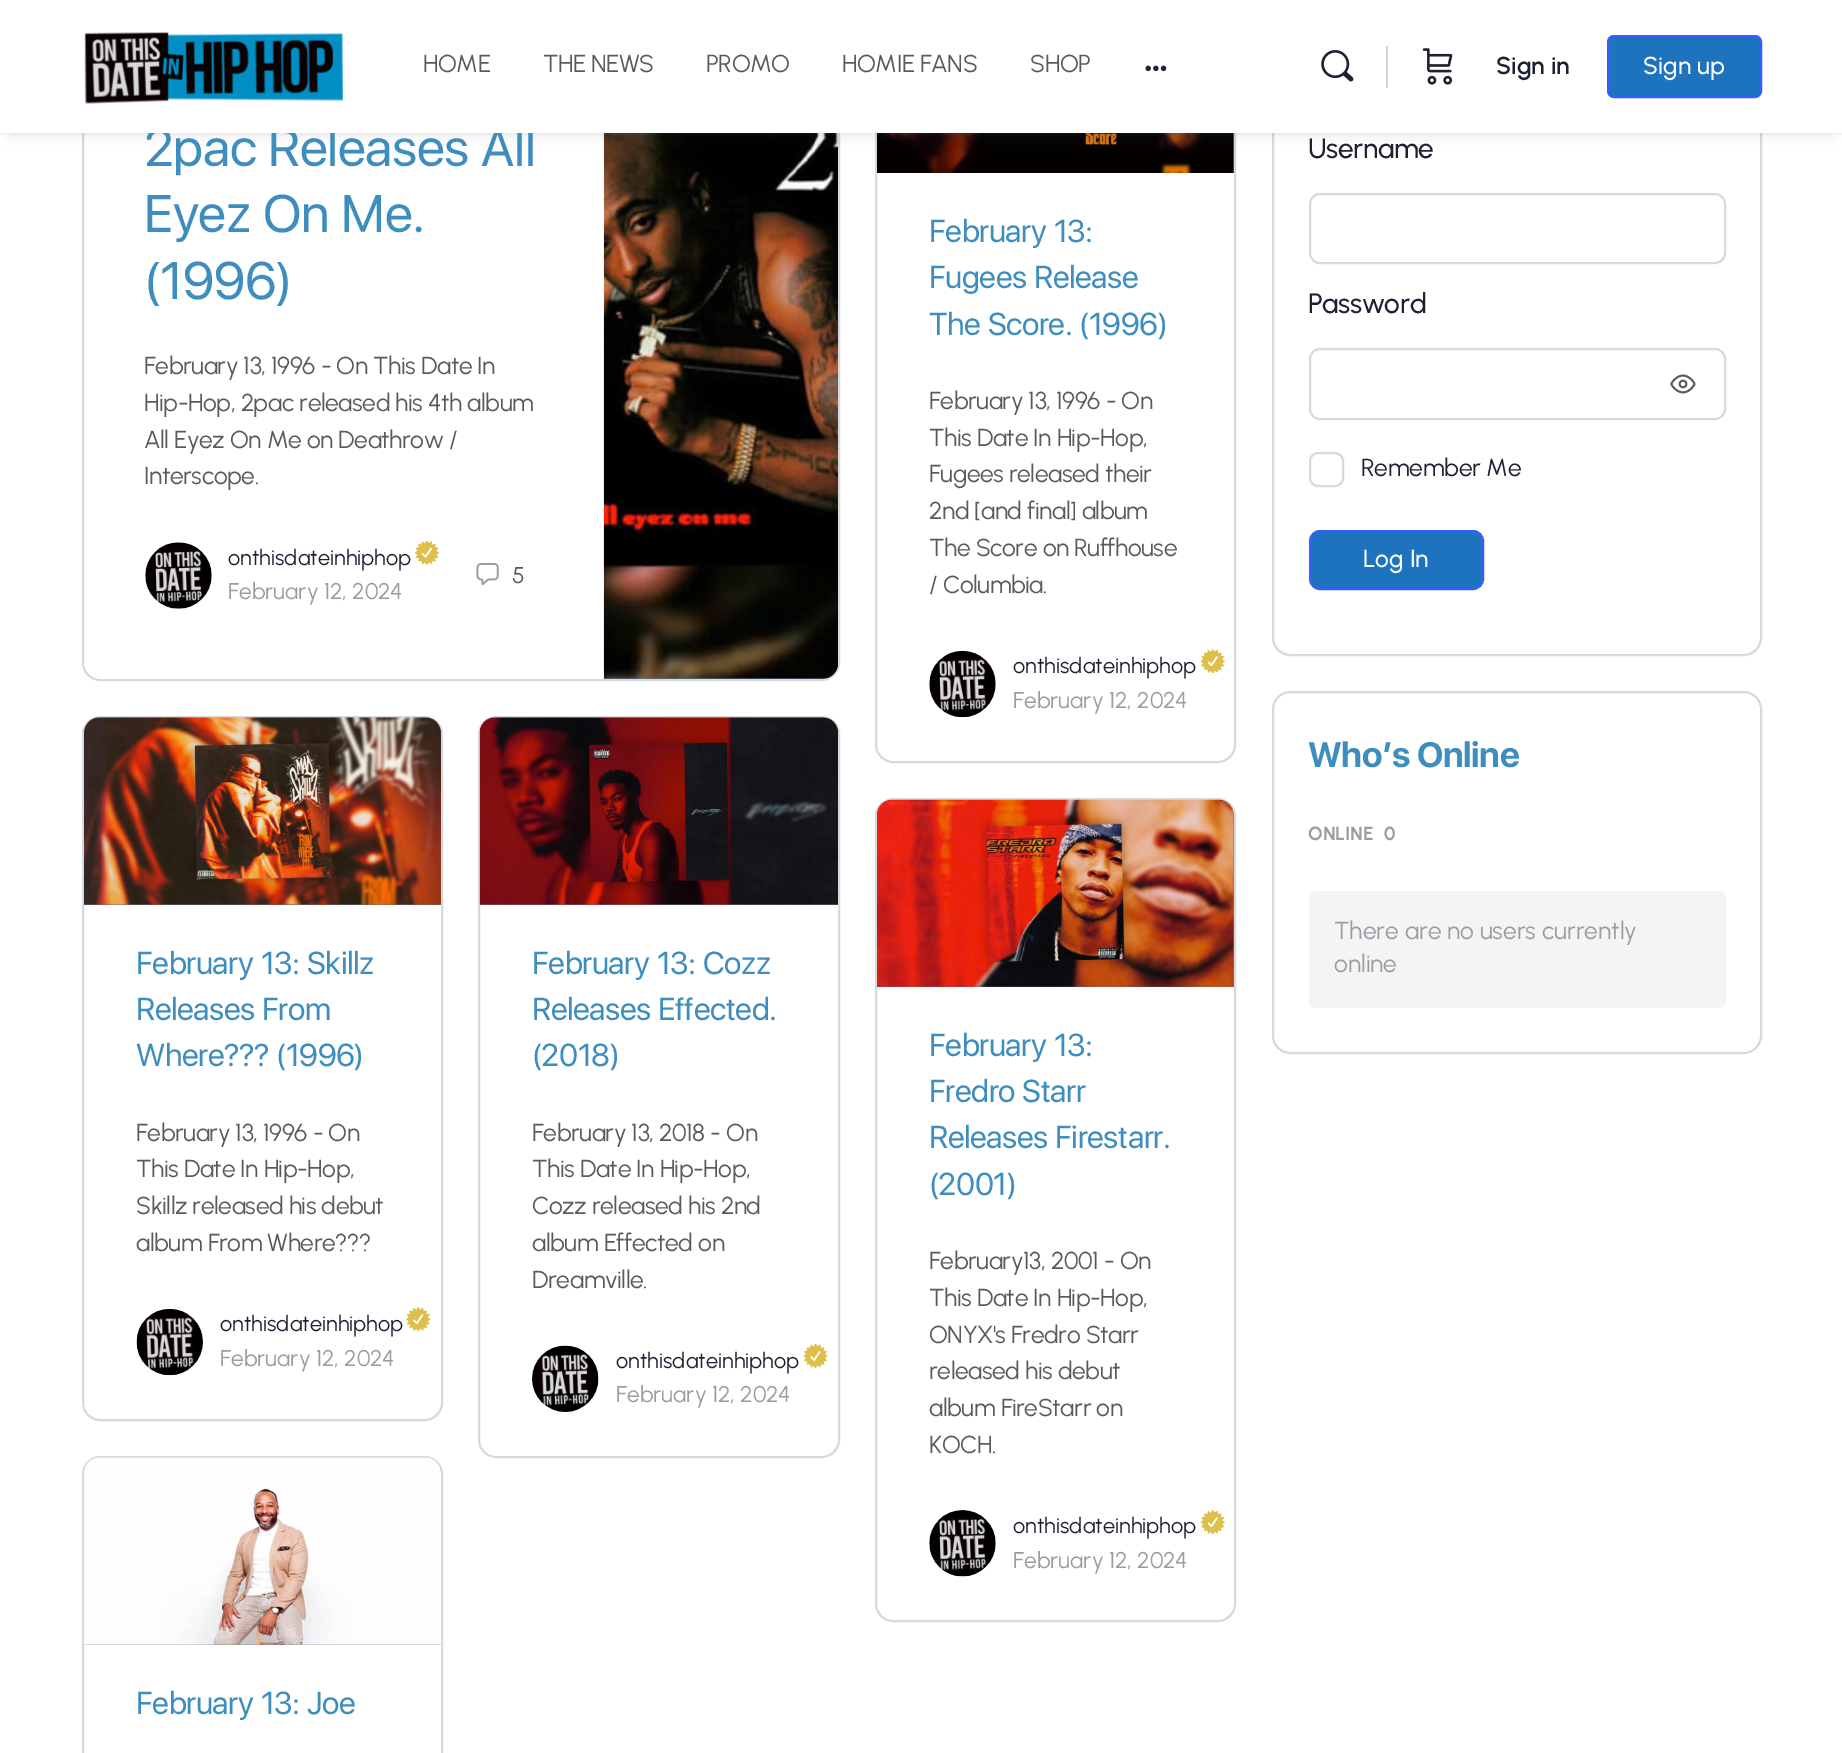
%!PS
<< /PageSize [1842 1753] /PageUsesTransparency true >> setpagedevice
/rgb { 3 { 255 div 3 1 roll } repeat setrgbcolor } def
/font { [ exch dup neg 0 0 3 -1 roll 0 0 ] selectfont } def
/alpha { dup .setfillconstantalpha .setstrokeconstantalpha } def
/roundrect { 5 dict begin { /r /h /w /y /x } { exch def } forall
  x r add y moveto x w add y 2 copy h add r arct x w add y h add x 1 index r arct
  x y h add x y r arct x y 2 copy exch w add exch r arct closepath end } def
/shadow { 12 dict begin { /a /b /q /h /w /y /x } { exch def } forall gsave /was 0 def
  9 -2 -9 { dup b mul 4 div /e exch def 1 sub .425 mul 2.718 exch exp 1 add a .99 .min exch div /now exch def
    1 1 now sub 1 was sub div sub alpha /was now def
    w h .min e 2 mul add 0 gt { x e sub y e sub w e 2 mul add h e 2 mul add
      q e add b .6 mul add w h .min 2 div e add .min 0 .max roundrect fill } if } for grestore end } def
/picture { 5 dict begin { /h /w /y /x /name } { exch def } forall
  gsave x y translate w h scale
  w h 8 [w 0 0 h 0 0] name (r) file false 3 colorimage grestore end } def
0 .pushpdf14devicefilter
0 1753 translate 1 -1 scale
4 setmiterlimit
255 255 255 rgb
0 0 1842 1753 rectfill
214 217 221 rgb
2 setlinewidth
83 -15 756 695 17 roundrect stroke
100 115 133 rgb
604 -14 moveto 822 -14 lineto 831 -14 838 -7 838 2 curveto 838 663 lineto 838 672 831 679 822 679 curveto 604 679 lineto closepath fill
(img/8.rgb) 603 133 235 546 picture
214 217 221 rgb
876 -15 359 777 17 roundrect stroke
100 115 133 rgb
1233 133 1 40 rectfill
(img/9.rgb) 877 133 357 40 picture
214 217 221 rgb
1273 1 488 654 17 roundrect stroke
65 71 108 rgb
12 21 1819 109 0 9 0.25 shadow
0.05 alpha
139 141 157 rgb
0 133 moveto 0 135 lineto 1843 135 lineto 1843 2 lineto 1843 133 lineto closepath fill
1 alpha
(img/5.rgb) 145 542 67 67 picture
(img/6.rgb) 415 541 24 24 picture
(img/7.rgb) 476 563 23 22 picture
(img/10.rgb) 929 650 67 68 picture
(img/11.rgb) 1201 649 24 25 picture
214 217 221 rgb
83 717 359 703 17 roundrect stroke
100 115 133 rgb
100 718 moveto 425 718 lineto 434 718 441 725 441 734 curveto 441 905 lineto 84 905 lineto 84 734 lineto 84 725 91 718 100 718 curveto closepath fill
(img/12.rgb) 84 717 357 188 picture
(img/13.rgb) 136 1308 67 68 picture
(img/14.rgb) 406 1307 25 25 picture
214 217 221 rgb
479 717 360 740 17 roundrect stroke
100 115 133 rgb
496 718 moveto 822 718 lineto 831 718 838 725 838 734 curveto 838 905 lineto 480 905 lineto 480 734 lineto 480 725 487 718 496 718 curveto closepath fill
(img/15.rgb) 479 717 359 188 picture
(img/16.rgb) 532 1345 67 67 picture
(img/17.rgb) 803 1344 25 24 picture
214 217 221 rgb
876 799 359 822 17 roundrect stroke
100 115 133 rgb
893 800 moveto 1218 800 lineto 1227 800 1234 807 1234 816 curveto 1234 987 lineto 877 987 lineto 877 816 lineto 877 807 884 800 893 800 curveto closepath fill
(img/18.rgb) 877 799 357 188 picture
(img/19.rgb) 929 1510 67 67 picture
(img/20.rgb) 1201 1510 24 25 picture
214 217 221 rgb
83 1457 359 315 17 roundrect stroke
(img/21.rgb) 84 1457 357 188 picture
1310 194 415 69 10 roundrect stroke
1310 349 415 70 10 roundrect stroke
(img/22.rgb) 1670 374 26 20 picture
1310 453 33 33 8 roundrect stroke
30 115 190 rgb
1310 531 173 58 10 roundrect gsave fill grestore
56 93 255 rgb
stroke
214 217 221 rgb
1273 692 488 361 17 roundrect stroke
242 244 245 rgb
1309 891 417 117 7 roundrect fill
/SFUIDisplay-Regular 52.5 font
61 141 191 rgb
144 166 moveto -0.4 0 (2pac Releases All) ashow
255 255 255 rgb
0 0 1842 133 rectfill
(img/1.rgb) 84 32 259 72 picture
(img/4.rgb) 1422 48 31 37 picture
210 211 214 rgb
1386 46 2 42 rectfill
(img/3.rgb) 1321 50 33 32 picture
(img/2.rgb) 1145 65 22 7 picture
/Urbanist-Regular 24.5 font
90 90 90 rgb
1030 72 moveto -0.4 0 (SHOP) ashow
842 72 moveto -0.4 0 (HOMIE FANS) ashow
706 72 moveto -0.4 0 (PROMO) ashow
543 72 moveto -0.4 0 (THE NEWS) ashow
423 72 moveto -0.4 0 (HOME) ashow
30 115 190 rgb
1608 36 153 61 6 roundrect gsave fill grestore
56 93 255 rgb
stroke
/Urbanist-Medium 24.5 font
255 255 255 rgb
1643 74 moveto (Sign up) show
/Urbanist-SemiBold 24.5 font
30 33 50 rgb
1496 74 moveto (Sign in) show
/SFUIDisplay-Regular 52.5 font
61 141 191 rgb
144 232 moveto -0.4 0 (Eyez On Me.) ashow
144 299 moveto -0.4 0 (\(1996\)) ashow
/Urbanist-Regular 24.5 font
90 90 90 rgb
144 374 moveto -0.4 0 (February 13, 1996 - On This Date In) ashow
144 411 moveto -0.4 0 (Hip-Hop, 2pac released his 4th album) ashow
144 448 moveto -0.4 0 (All Eyez On Me on Deathrow /) ashow
144 484 moveto -0.4 0 (Interscope.) ashow
/Urbanist-Regular 21.75 font
30 33 50 rgb
228 565 moveto (onthisdateinhiphop) show
/Urbanist-Regular 22.75 font
155 156 159 rgb
228 599 moveto (February 12, 2024) show
90 90 90 rgb
512 583 moveto (5) show
/SFUIDisplay-Regular 31.5 font
61 141 191 rgb
929 242 moveto -0.4 0 (February 13:) ashow
929 288 moveto -0.4 0 (Fugees Release) ashow
929 335 moveto -0.4 0 (The Score. \(1996\)) ashow
/Urbanist-Regular 24.5 font
90 90 90 rgb
929 409 moveto -0.4 0 (February 13, 1996 - On) ashow
929 446 moveto -0.4 0 (This Date In Hip-Hop,) ashow
929 482 moveto -0.4 0 (Fugees released their) ashow
929 519 moveto -0.4 0 (2nd [and final] album) ashow
929 556 moveto -0.4 0 (The Score on Ruffhouse) ashow
929 593 moveto -0.4 0 (/ Columbia.) ashow
/Urbanist-Regular 21.75 font
30 33 50 rgb
1013 673 moveto (onthisdateinhiphop) show
/Urbanist-Regular 22.75 font
155 156 159 rgb
1013 708 moveto (February 12, 2024) show
/SFUIDisplay-Regular 31.5 font
61 141 191 rgb
136 974 moveto -0.4 0 (February 13: Skillz) ashow
136 1020 moveto -0.4 0 (Releases From) ashow
136 1066 moveto -0.4 0 (Where??? \(1996\)) ashow
/Urbanist-Regular 24.5 font
90 90 90 rgb
136 1141 moveto -0.4 0 (February 13, 1996 - On) ashow
136 1177 moveto -0.4 0 (This Date In Hip-Hop,) ashow
136 1214 moveto -0.4 0 (Skillz released his debut) ashow
136 1251 moveto -0.4 0 (album From Where???) ashow
/Urbanist-Regular 21.75 font
30 33 50 rgb
220 1331 moveto (onthisdateinhiphop) show
/Urbanist-Regular 22.75 font
155 156 159 rgb
220 1366 moveto (February 12, 2024) show
/SFUIDisplay-Regular 31.5 font
61 141 191 rgb
532 974 moveto -0.4 0 (February 13: Cozz) ashow
532 1020 moveto -0.4 0 (Releases Effected.) ashow
532 1066 moveto -0.4 0 (\(2018\)) ashow
/Urbanist-Regular 24.5 font
90 90 90 rgb
532 1141 moveto -0.4 0 (February 13, 2018 - On) ashow
532 1177 moveto -0.4 0 (This Date In Hip-Hop,) ashow
532 1214 moveto -0.4 0 (Cozz released his 2nd) ashow
532 1251 moveto -0.4 0 (album Effected on) ashow
532 1288 moveto -0.4 0 (Dreamville.) ashow
/Urbanist-Regular 21.75 font
30 33 50 rgb
616 1368 moveto (onthisdateinhiphop) show
/Urbanist-Regular 22.75 font
155 156 159 rgb
616 1402 moveto (February 12, 2024) show
/SFUIDisplay-Regular 31.5 font
61 141 191 rgb
929 1056 moveto -0.4 0 (February 13:) ashow
929 1102 moveto -0.4 0 (Fredro Starr) ashow
929 1148 moveto -0.4 0 (Releases Firestarr.) ashow
929 1195 moveto -0.4 0 (\(2001\)) ashow
/Urbanist-Regular 24.5 font
90 90 90 rgb
929 1269 moveto -0.4 0 (February13, 2001 - On) ashow
929 1306 moveto -0.4 0 (This Date In Hip-Hop,) ashow
929 1343 moveto -0.4 0 (ONYX's Fredro Starr) ashow
929 1379 moveto -0.4 0 (released his debut) ashow
929 1416 moveto -0.4 0 (album FireStarr on) ashow
929 1453 moveto -0.4 0 (KOCH.) ashow
/Urbanist-Regular 21.75 font
30 33 50 rgb
1013 1533 moveto (onthisdateinhiphop) show
/Urbanist-Regular 22.75 font
155 156 159 rgb
1013 1568 moveto (February 12, 2024) show
/SFUIDisplay-Regular 31.5 font
61 141 191 rgb
136 1714 moveto -0.4 0 (February 13: Joe) ashow
/Urbanist-Medium 28 font
30 33 50 rgb
1308 158 moveto -0.4 0 (Username) ashow
1308 313 moveto -0.4 0 (Password) ashow
/Urbanist-Regular 24.5 font
1361 476 moveto -0.25 0 (Remember Me) ashow
/Urbanist-Medium 24.5 font
255 255 255 rgb
1363 567 moveto (Log In) show
/SFUIDisplay-Bold 35 font
61 141 191 rgb
1308 767 moveto -0.4 0 (Who’s Online) ashow
/Urbanist-Bold 19 font
155 156 159 rgb
1308 840 moveto (ONLINE) show
1384 840 moveto (0) show
/Urbanist-Regular 24.5 font
1334 939 moveto (There are no users currently) show
1334 972 moveto (online) show
.poppdf14devicefilter showpage
